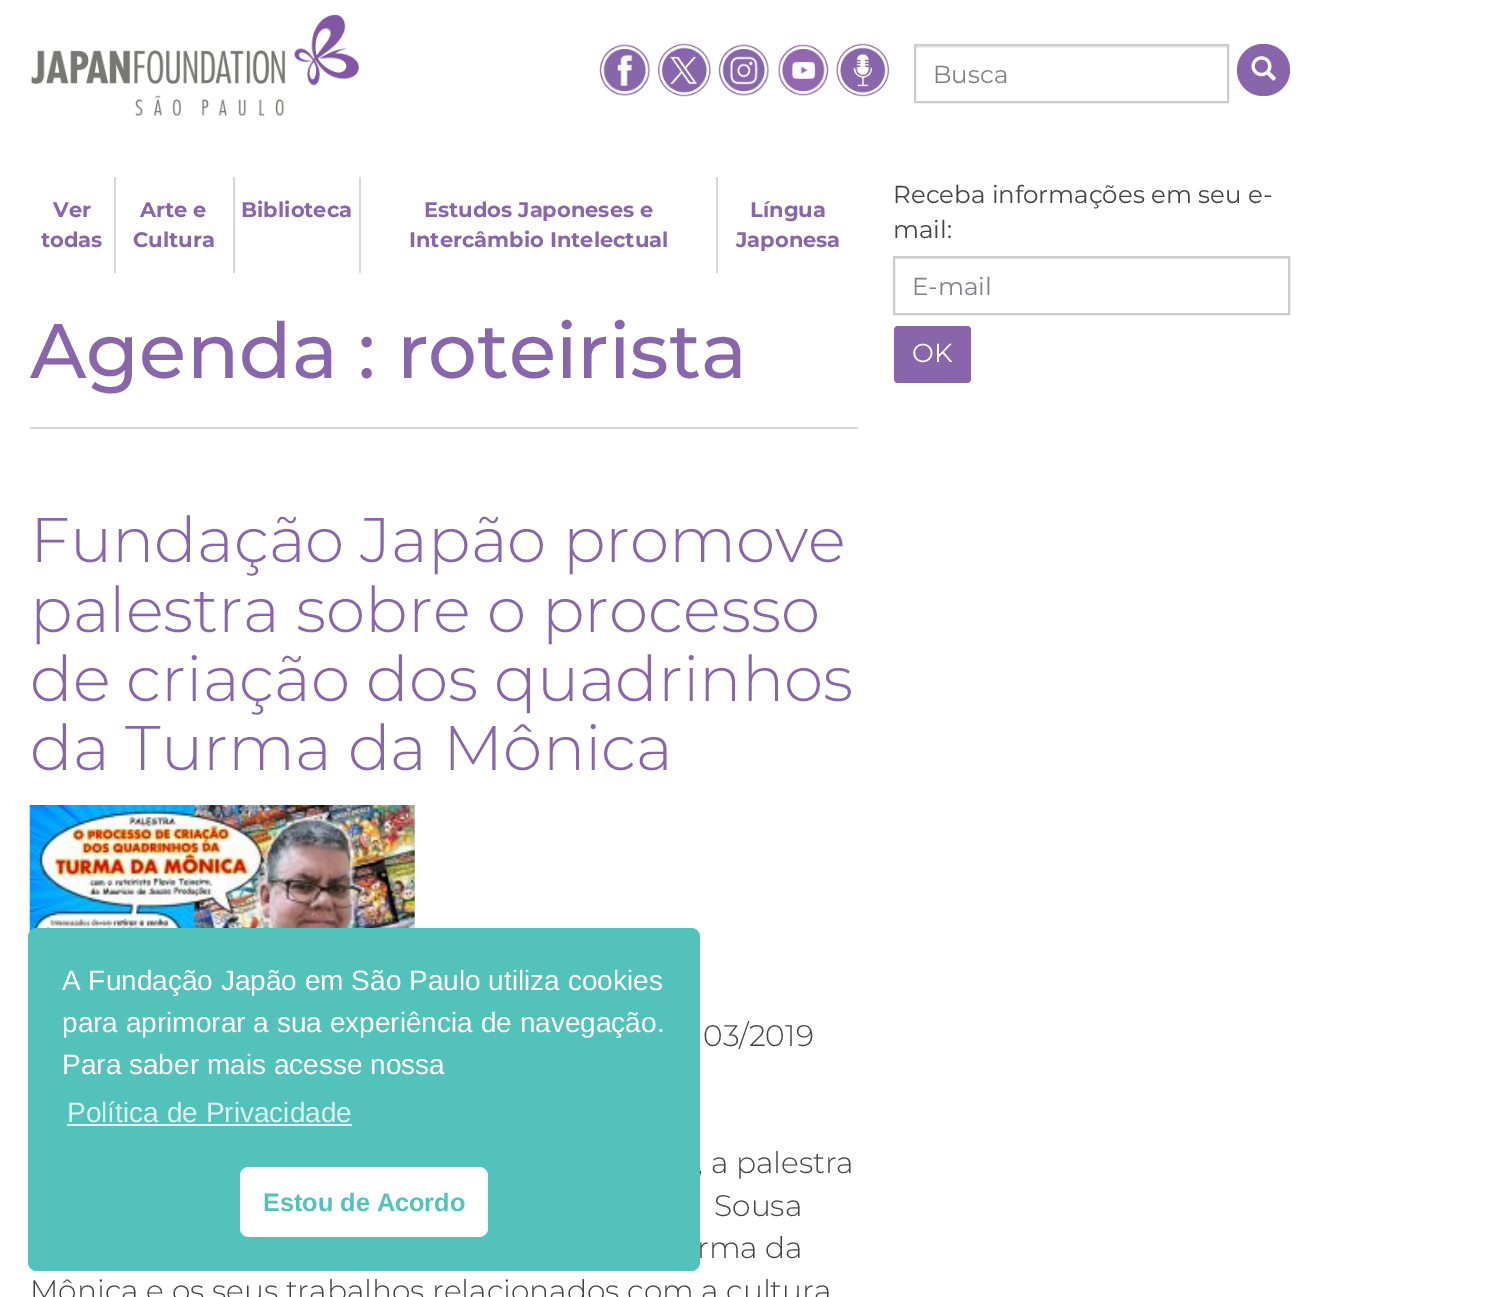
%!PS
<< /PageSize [1496 1297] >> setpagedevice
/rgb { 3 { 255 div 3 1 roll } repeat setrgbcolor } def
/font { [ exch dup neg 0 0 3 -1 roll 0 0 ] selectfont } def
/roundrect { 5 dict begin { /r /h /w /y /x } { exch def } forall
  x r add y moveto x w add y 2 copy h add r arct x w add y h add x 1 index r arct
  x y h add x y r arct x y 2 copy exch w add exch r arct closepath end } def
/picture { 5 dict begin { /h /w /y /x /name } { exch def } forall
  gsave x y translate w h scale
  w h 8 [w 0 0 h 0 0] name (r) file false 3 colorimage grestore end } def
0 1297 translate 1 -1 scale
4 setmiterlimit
255 255 255 rgb
0 0 1496 1297 rectfill
(img/1.rgb) 31 15 328 101 picture
(img/2.rgb) 599 44 52 52 picture
(img/3.rgb) 658 43 53 54 picture
(img/4.rgb) 718 44 52 52 picture
(img/5.rgb) 778 44 51 52 picture
(img/6.rgb) 836 43 53 54 picture
236 236 236 rgb
915 46 312 2 rectfill
204 204 204 rgb
2 setlinewidth
915 45 313 57 rectstroke
137 102 172 rgb
1237 44 53 52 26 roundrect fill
(img/7.rgb) 1251 56 25 25 picture
[
  [114 177 2 96 215 215 215]
  [233 177 2 96 215 215 215]
  [359 177 2 96 215 215 215]
  [716 177 2 96 215 215 215]
  [30 427 828 2 215 215 215]
] { aload pop rgb rectfill } forall
(img/8.rgb) 29 805 386 128 picture
236 236 236 rgb
894 258 394 1 rectfill
204 204 204 rgb
894 257 395 57 rectstroke
137 102 172 rgb
894 326 77 57 4 roundrect fill
/Montserrat-Regular 24.5 font
129 130 133 rgb
933 83 moveto (Busca) show
/Montserrat-Bold 21 font
137 102 172 rgb
[
  [(Ver) 53 217]
  [(todas) 41 247]
  [(Arte e) 140 217]
  [(Cultura) 133 247]
  [(Biblioteca) 241 217]
  [(Estudos Japoneses e) 424 217]
  [(Intercâmbio Intelectual) 409 247]
  [(Língua) 750 217]
  [(Japonesa) 736 247]
] { aload pop moveto show } forall
/Montserrat-Medium 77 font
30 378 moveto (Agenda : roteirista) show
/Montserrat-Light 63 font
[
  [(Fundação Japão promove) 30 562]
  [(palestra sobre o processo) 30 632]
  [(de criação dos quadrinhos) 30 701]
  [(da Turma da Mônica) 30 770]
] { aload pop moveto show } forall
/Montserrat-Light 29.75 font
68 68 68 rgb
[
  [(03/2019) 703 1046]
  [(, a palestra) 697 1173]
  [(Sousa) 714 1216]
  [(rma da) 697 1258]
  [(Mônica e os seus trabalhos relacionados com a cultura) 30 1301]
] { aload pop moveto show } forall
/Montserrat-Regular 24.5 font
893 203 moveto (Receba informações em seu e-) show
893 238 moveto (mail:) show
129 130 133 rgb
912 295 moveto (E-mail) show
/Montserrat-Regular 26 font
255 255 255 rgb
912 362 moveto (OK) show
83 194 187 rgb
28 928 672 343 9 roundrect fill
/LiberationSans-Regular 28 font
255 255 255 rgb
[
  [(A Fundação Japão em São Paulo utiliza cookies) 62 990]
  [(para aprimorar a sua experiência de navegação.) 62 1032]
  [(Para saber mais acesse nossa) 62 1074]
] { aload pop moveto show } forall
221 243 241 rgb
67 1122 moveto (Política de Privacidade) show
67 1124 285 2 rectfill
255 255 255 rgb
240 1167 248 70 9 roundrect fill
/LiberationSans-Bold 25.25 font
83 194 187 rgb
263 1211 moveto (Estou de Acordo) show
showpage
